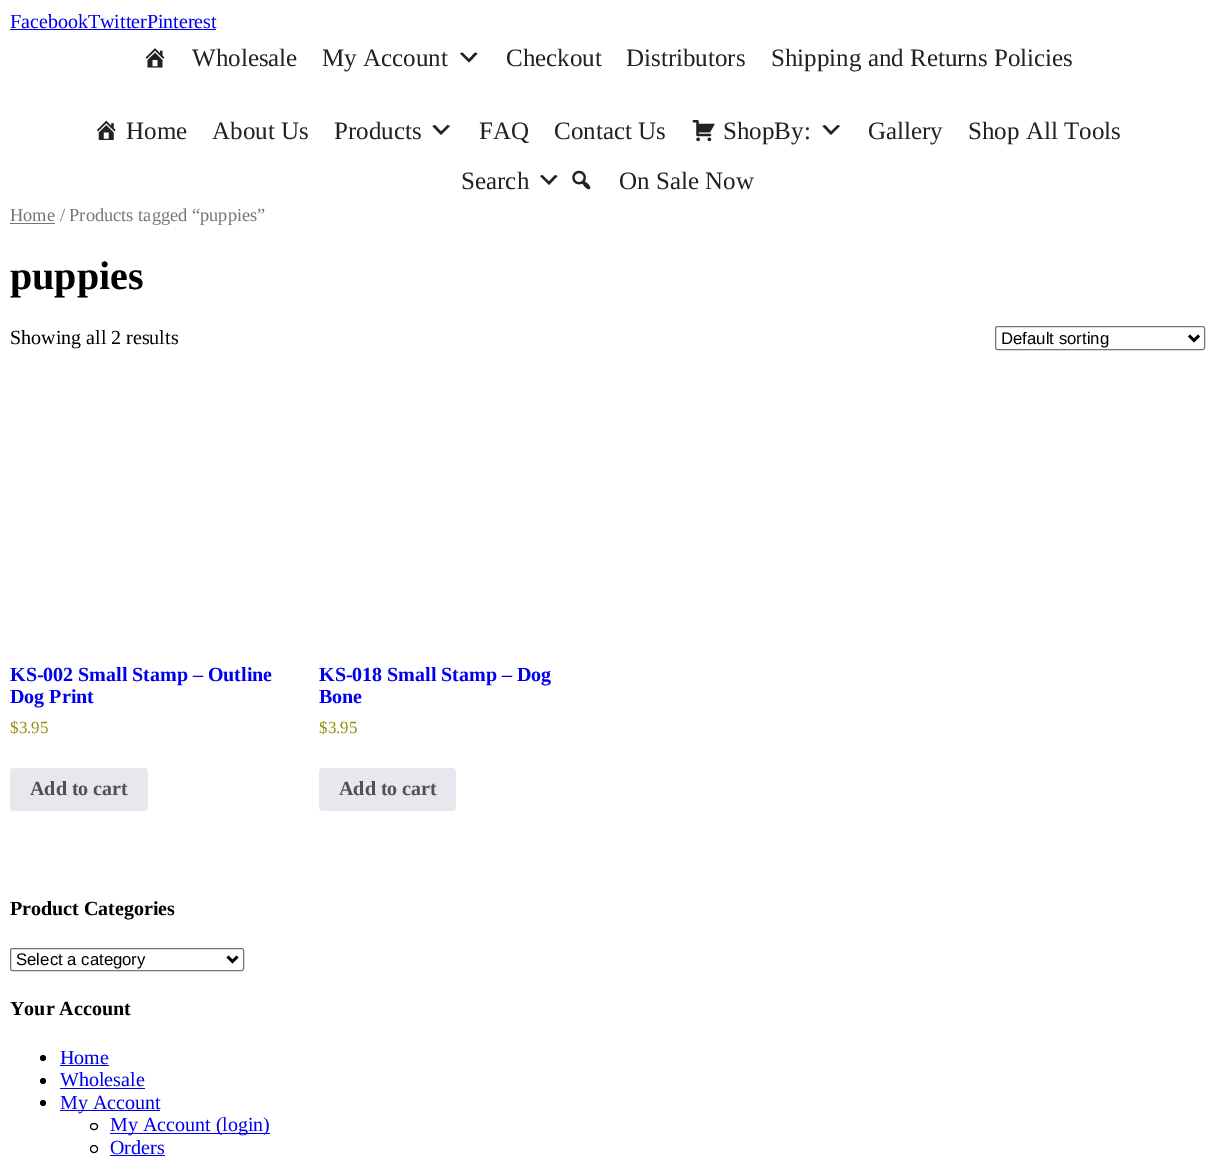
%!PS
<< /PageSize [1215 1160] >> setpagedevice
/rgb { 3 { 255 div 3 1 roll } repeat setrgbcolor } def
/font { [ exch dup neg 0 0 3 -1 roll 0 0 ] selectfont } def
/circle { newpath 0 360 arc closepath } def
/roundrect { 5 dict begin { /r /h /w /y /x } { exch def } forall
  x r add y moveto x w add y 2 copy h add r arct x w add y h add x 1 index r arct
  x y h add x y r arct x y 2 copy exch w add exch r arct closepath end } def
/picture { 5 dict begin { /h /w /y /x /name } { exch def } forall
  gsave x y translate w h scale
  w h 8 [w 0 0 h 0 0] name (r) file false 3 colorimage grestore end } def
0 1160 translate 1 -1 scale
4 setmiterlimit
255 255 255 rgb
0 0 1215 1160 rectfill
0 0 238 rgb
10 29 206 1 rectfill
(img/1.rgb) 145 48 20 20 picture
34 34 34 rgb
462.5 52.5 moveto 469 59 lineto 475 52.5 lineto 477.5 53.5 lineto 469 62.5 lineto 460 53.5 lineto closepath fill
(img/2.rgb) 96 120 20 20 picture
435 125 moveto 441 131.5 lineto 447.5 125 lineto 450 126 lineto 441 135 lineto 432.5 126 lineto closepath fill
(img/3.rgb) 692 120 23 22 picture
825 125 moveto 831 131.5 lineto 837.5 125 lineto 840 126 lineto 831 135 lineto 822.5 126 lineto closepath fill
542.5 175 moveto 549 181.5 lineto 555 175 lineto 557.5 176 lineto 549 185 lineto 540 176 lineto closepath fill
(img/4.rgb) 572 170 19 20 picture
118 118 118 rgb
10 223 45 1 rectfill
995.5 326.5 209 23 2 roundrect stroke
0 0 0 rgb
2.5 setlinewidth
1189 335.5 moveto 1194 340.5 lineto 1199 335.5 lineto stroke
233 230 237 rgb
10 768 138 43 4 roundrect fill
319 768 137 43 4 roundrect fill
118 118 118 rgb
1 setlinewidth
10.5 948.5 233 22 2 roundrect stroke
0 0 0 rgb
2.5 setlinewidth
227.5 956.5 moveto 232.5 961.5 lineto 237.5 956.5 lineto stroke
43 1058 3 circle fill
0 0 238 rgb
60 1065 49 1 rectfill
0 0 0 rgb
43 1081 3 circle fill
0 0 238 rgb
60 1088 85 1 rectfill
0 0 0 rgb
43 1103 3 circle fill
0 0 238 rgb
60 1110 100 1 rectfill
0 0 0 rgb
1 setlinewidth
90.5 1123.5 7 6 3 roundrect stroke
0 0 238 rgb
110 1133 160 1 rectfill
0 0 0 rgb
94 1149 3.5 circle stroke
0 0 238 rgb
110 1155 55 1 rectfill
/LiberationSerif-Regular 20 font
10 28 moveto (FacebookTwitterPinterest) show
/LiberationSerif-Regular 25 font
34 34 34 rgb
[
  [(Wholesale) 192 66]
  [(My Account) 322 66]
  [(Checkout) 506 66]
  [(Distributors) 626 66]
  [(Shipping and Returns Policies) 771 66]
  [(Home) 126 139]
  [(About Us) 212 139]
  [(Products) 334 139]
  [(FAQ) 479 139]
  [(Contact Us) 554 139]
  [(ShopBy:) 723 139]
  [(Gallery) 868 139]
  [(Shop All Tools) 968 139]
  [(Search) 461 189]
  [(On Sale Now) 619 189]
] { aload pop moveto show } forall
/LiberationSerif-Regular 18.4 font
118 118 118 rgb
10 221 moveto (Home / Products tagged “puppies”) show
/LiberationSerif-Bold 40 font
0 0 0 rgb
10 289 moveto (puppies) show
/LiberationSerif-Regular 20 font
10 344 moveto (Showing all 2 results) show
/LiberationSans-Regular 16.75 font
1001 344 moveto (Default sorting) show
/LiberationSerif-Bold 20 font
0 0 238 rgb
10 681 moveto (KS-002 Small Stamp – Outline) show
10 703 moveto (Dog Print) show
/LiberationSerif-Regular 17 font
149 142 9 rgb
10 733 moveto ($3.95) show
/LiberationSerif-Bold 20 font
81 81 81 rgb
30 795 moveto (Add to cart) show
0 0 238 rgb
319 681 moveto (KS-018 Small Stamp – Dog) show
319 703 moveto (Bone) show
/LiberationSerif-Regular 17 font
149 142 9 rgb
319 733 moveto ($3.95) show
/LiberationSerif-Bold 20 font
81 81 81 rgb
339 795 moveto (Add to cart) show
0 0 0 rgb
10 915 moveto (Product Categories) show
/LiberationSans-Regular 16.75 font
16 965 moveto (Select a category) show
/LiberationSerif-Bold 20 font
10 1015 moveto (Your Account) show
/LiberationSerif-Regular 20 font
0 0 238 rgb
[
  [(Home) 60 1064]
  [(Wholesale) 60 1086]
  [(My Account) 60 1109]
  [(My Account \(login\)) 110 1131]
  [(Orders) 110 1154]
] { aload pop moveto show } forall
showpage
